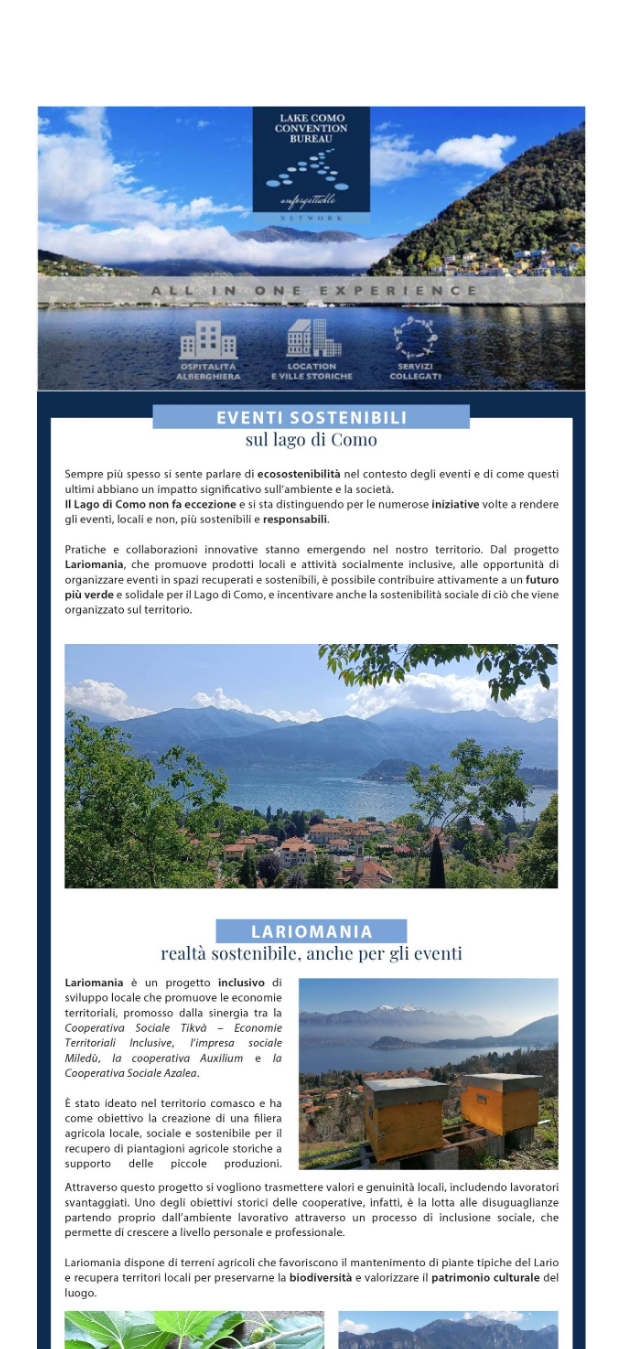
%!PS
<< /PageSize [623 1349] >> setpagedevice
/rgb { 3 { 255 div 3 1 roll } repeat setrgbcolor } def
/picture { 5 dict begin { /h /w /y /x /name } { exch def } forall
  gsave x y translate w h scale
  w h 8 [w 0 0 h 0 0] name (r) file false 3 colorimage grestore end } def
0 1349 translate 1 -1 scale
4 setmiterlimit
255 255 255 rgb
0 0 623 1349 rectfill
247 247 247 rgb
36.5 105.5 550 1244 rectstroke
(img/1.rgb) 37 106 549 1243 picture
showpage
